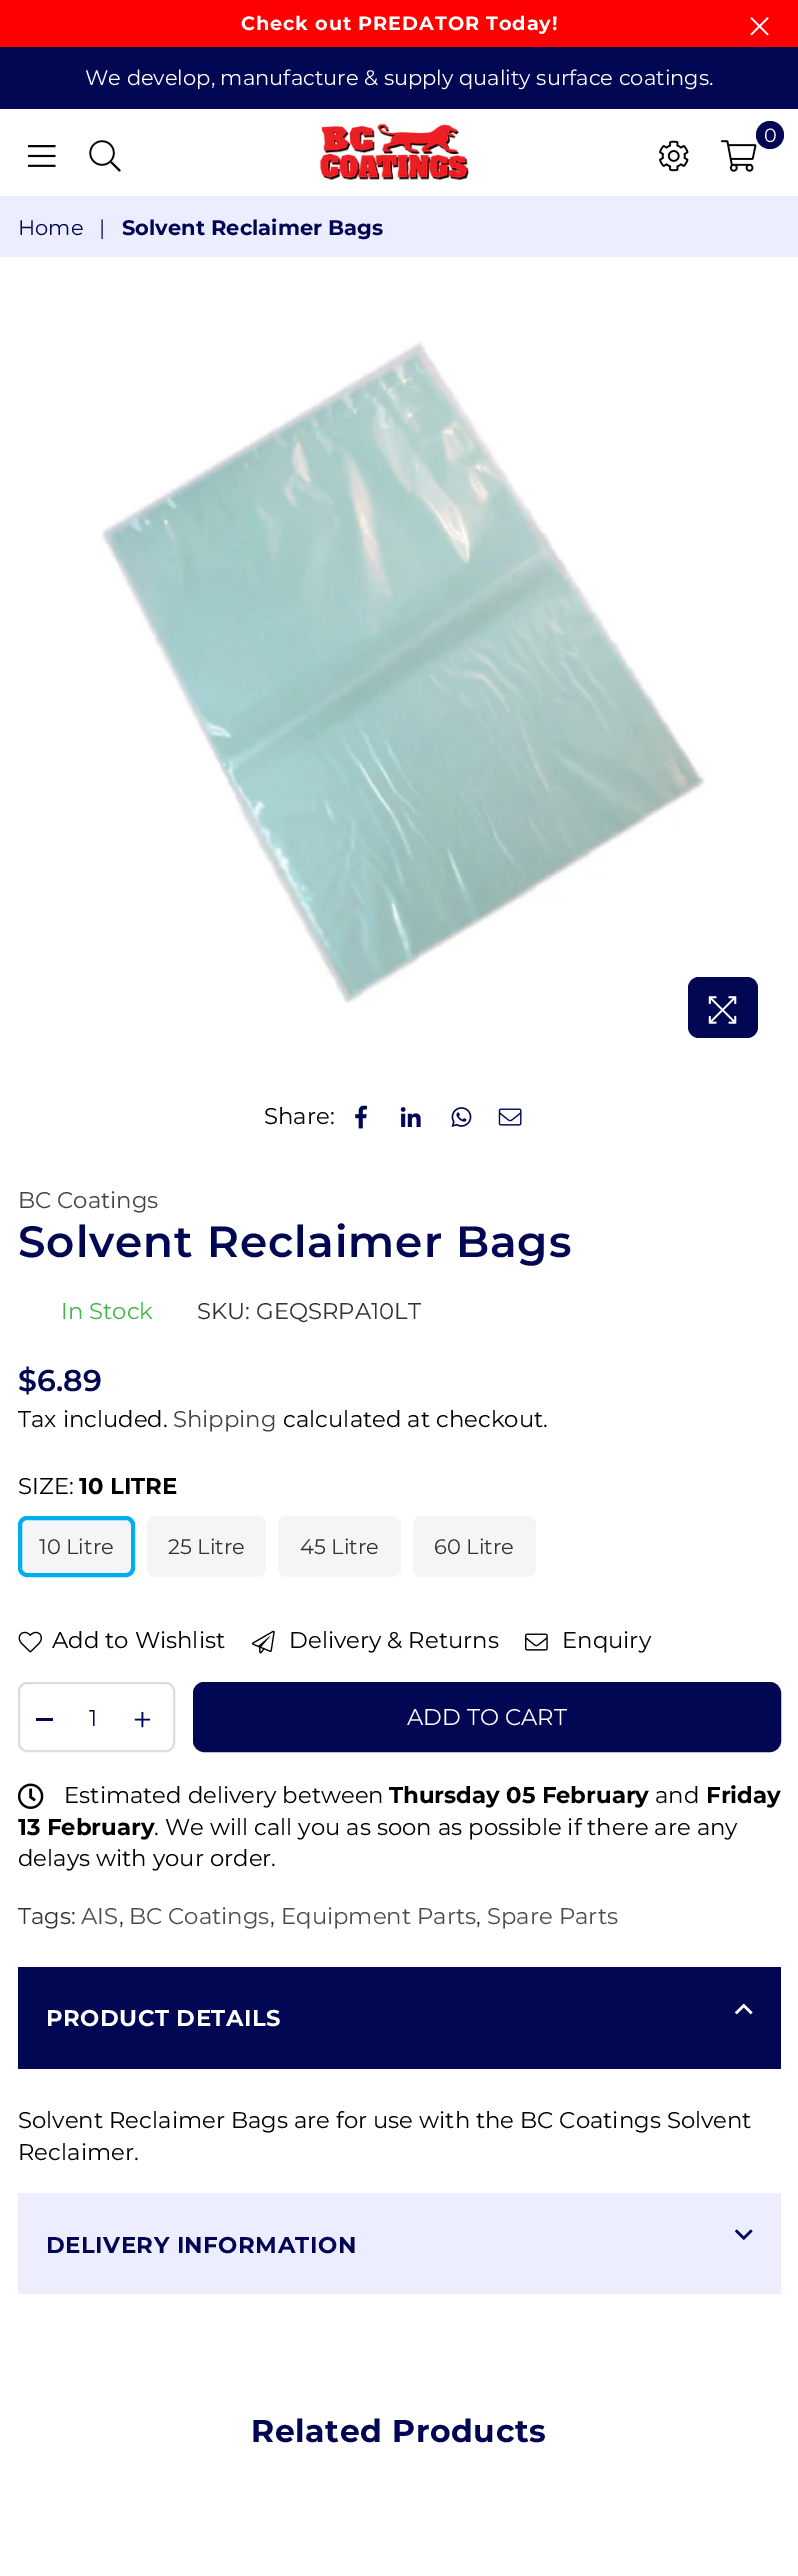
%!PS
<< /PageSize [798 2576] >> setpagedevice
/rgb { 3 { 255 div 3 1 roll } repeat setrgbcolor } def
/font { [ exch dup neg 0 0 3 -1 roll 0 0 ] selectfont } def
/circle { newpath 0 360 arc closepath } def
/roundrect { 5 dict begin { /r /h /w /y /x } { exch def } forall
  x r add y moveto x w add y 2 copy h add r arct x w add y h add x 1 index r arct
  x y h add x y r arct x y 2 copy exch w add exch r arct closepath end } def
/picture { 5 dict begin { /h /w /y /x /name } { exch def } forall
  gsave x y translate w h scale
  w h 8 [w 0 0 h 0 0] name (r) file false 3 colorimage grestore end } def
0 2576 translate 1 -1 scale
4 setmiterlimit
255 255 255 rgb
0 0 798 2576 rectfill
255 0 0 rgb
0 0 798 47 rectfill
(img/1.rgb) 750 17 19 19 picture
2 7 83 rgb
0 47 798 62 rectfill
(img/2.rgb) 320 123 149 58 picture
(img/3.rgb) 721 140 36 32 picture
770 135 14 circle fill
(img/4.rgb) 659 140 30 32 picture
(img/5.rgb) 28 145 28 22 picture
(img/6.rgb) 89 140 32 32 picture
236 237 255 rgb
0 196 798 61 rectfill
(img/7.rgb) 101 341 605 663 picture
2 7 83 rgb
688 977 70 61 11 roundrect fill
(img/8.rgb) 708 996 29 28 picture
(img/9.rgb) 355 1105 12 24 picture
(img/10.rgb) 400 1107 21 20 picture
(img/11.rgb) 451 1107 21 20 picture
(img/12.rgb) 498 1108 24 18 picture
245 245 245 rgb
20 1518 113 57 7 roundrect gsave fill grestore
0 174 239 rgb
4 setlinewidth
stroke
245 245 245 rgb
147 1516 119 61 9 roundrect fill
278 1516 123 61 9 roundrect fill
413 1516 123 61 9 roundrect fill
(img/13.rgb) 18 1631 24 22 picture
(img/14.rgb) 252 1630 23 24 picture
(img/15.rgb) 525 1633 23 18 picture
221 221 221 rgb
2 setlinewidth
19 1683 155 68 8 roundrect stroke
2 7 83 rgb
36 1718 17 3 rectfill
(img/16.rgb) 134 1711 17 17 picture
194 1683 586 68 10 roundrect gsave fill grestore
stroke
(img/17.rgb) 17 1783 27 26 picture
18 1967 763 102 rectfill
(img/18.rgb) 735 2003 18 12 picture
236 237 255 rgb
18 2193 763 101 rectfill
(img/19.rgb) 735 2229 18 11 picture
/Montserrat-Bold 19.25 font
255 255 255 rgb
241 30 moveto 0.9 0 (Check out PREDATOR Today!) ashow
/Montserrat-Regular 21 font
85 85 moveto (We develop, manufacture & supply quality surface coatings.) show
/Montserrat-Regular 19.25 font
764 142 moveto (0) show
/Montserrat-Regular 21 font
2 7 83 rgb
18 235 moveto (Home) show
99 235 moveto (|) show
/Montserrat-Bold 21 font
122 235 moveto (Solvent Reclaimer Bags) show
/Montserrat-Regular 22.75 font
0 0 0 rgb
264 1124 moveto (Share:) show
68 68 68 rgb
18 1208 moveto (BC Coatings) show
/Montserrat-SemiBold 43.75 font
2 7 83 rgb
18 1257 moveto 0.9 0 (Solvent Reclaimer Bags) ashow
/Montserrat-Regular 22.75 font
65 182 73 rgb
61 1319 moveto (In Stock) show
51 51 51 rgb
197 1319 moveto (SKU: GEQSRPA10LT) show
/Montserrat-SemiBold 30 font
2 7 83 rgb
18 1391 moveto ($6.89) show
/Montserrat-Regular 22.75 font
0 0 0 rgb
18 1427 moveto (Tax included.) show
68 68 68 rgb
173 1427 moveto (Shipping) show
0 0 0 rgb
283 1427 moveto (calculated at checkout.) show
18 1494 moveto (SIZE:) show
/Montserrat-Bold 22.75 font
79 1494 moveto (10 LITRE) show
/Montserrat-Regular 21 font
51 51 51 rgb
[
  [(10 Litre) 39 1554]
  [(25 Litre) 168 1554]
  [(45 Litre) 300 1554]
  [(60 Litre) 434 1554]
] { aload pop moveto show } forall
/Montserrat-Regular 22.75 font
0 0 0 rgb
[
  [(Add to Wishlist) 52 1648]
  [(Delivery & Returns) 289 1648]
  [(Enquiry) 562 1648]
] { aload pop moveto show } forall
2 7 83 rgb
89 1726 moveto (1) show
255 255 255 rgb
407 1725 moveto (ADD TO CART) show
0 0 0 rgb
64 1803 moveto (Estimated delivery between) show
/Montserrat-Bold 22.75 font
389 1803 moveto (Thursday 05 February) show
/Montserrat-Regular 22.75 font
655 1803 moveto (and) show
/Montserrat-Bold 22.75 font
706 1803 moveto (Friday) show
18 1835 moveto (13 February) show
/Montserrat-Regular 22.75 font
154 1835 moveto (. We will call you as soon as possible if there are any) show
18 1866 moveto (delays with your order.) show
51 51 51 rgb
18 1924 moveto (Tags:) show
77 77 77 rgb
81 1924 moveto (AIS) show
51 51 51 rgb
119 1924 moveto (,) show
77 77 77 rgb
129 1924 moveto (BC Coatings) show
51 51 51 rgb
270 1924 moveto (,) show
77 77 77 rgb
281 1924 moveto (Equipment Parts) show
51 51 51 rgb
476 1924 moveto (,) show
77 77 77 rgb
487 1924 moveto (Spare Parts) show
/Montserrat-Bold 22.75 font
255 255 255 rgb
46 2026 moveto 0.5 0 (PRODUCT DETAILS) ashow
/Montserrat-Regular 22.75 font
0 0 0 rgb
18 2128 moveto (Solvent Reclaimer Bags are for use with the BC Coatings Solvent) show
18 2160 moveto (Reclaimer.) show
/Montserrat-Bold 22.75 font
2 7 83 rgb
46 2253 moveto 0.5 0 (DELIVERY INFORMATION) ashow
/Montserrat-Bold 31.5 font
251 2442 moveto 0.6 0 (Related Products) ashow
showpage
